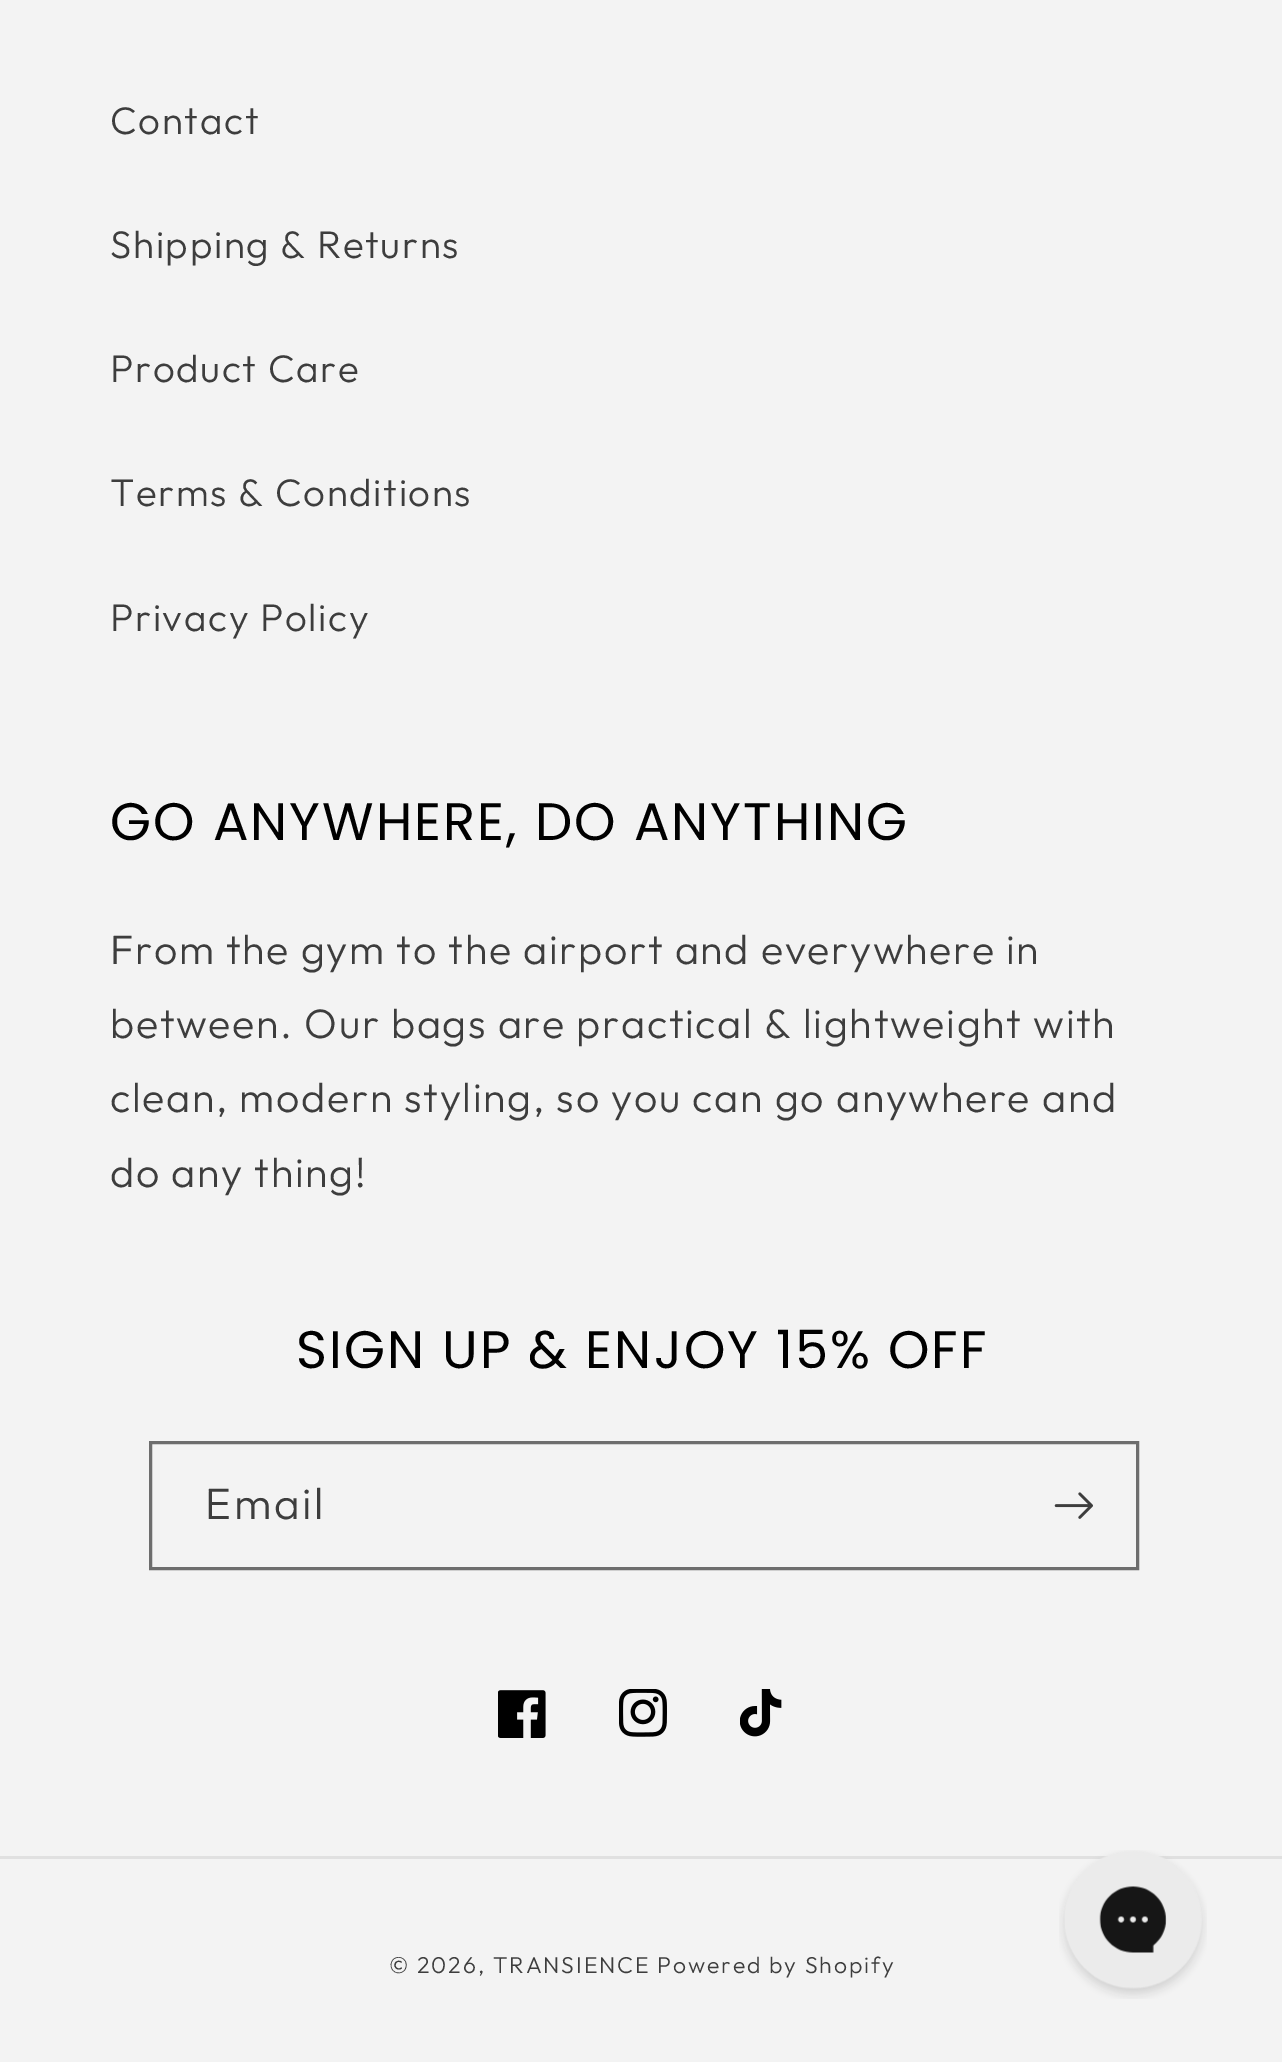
%!PS
<< /PageSize [1282 2062] >> setpagedevice
/rgb { 3 { 255 div 3 1 roll } repeat setrgbcolor } def
/font { [ exch dup neg 0 0 3 -1 roll 0 0 ] selectfont } def
/picture { 5 dict begin { /h /w /y /x /name } { exch def } forall
  gsave x y translate w h scale
  w h 8 [w 0 0 h 0 0] name (r) file false 3 colorimage grestore end } def
0 2062 translate 1 -1 scale
4 setmiterlimit
243 243 243 rgb
0 0 1282 2062 rectfill
109 109 109 rgb
3 setlinewidth
150.5 1442.5 987 126 rectstroke
(img/1.rgb) 1054 1492 39 27 picture
(img/2.rgb) 498 1690 48 48 picture
(img/3.rgb) 619 1689 48 48 picture
(img/4.rgb) 740 1689 42 48 picture
224 224 224 rgb
0 1856 1282 3 rectfill
(img/5.rgb) 1059 1850 148 149 picture
/Outfit-Light 38.5 font
61 61 61 rgb
110 134 moveto 1.65 0 (Contact) ashow
110 258 moveto 1.65 0 (Shipping & Returns) ashow
110 382 moveto 1.65 0 (Product Care) ashow
110 506 moveto 1.65 0 (Terms & Conditions) ashow
110 631 moveto 1.65 0 (Privacy Policy) ashow
/Poppins-Regular 52.75 font
0 0 0 rgb
110 840 moveto 2 0 (GO ANYWHERE, DO ANYTHING) ashow
/Outfit-Light 41.25 font
61 61 61 rgb
110 964 moveto 1.65 0 (From the gym to the airport and everywhere in) ashow
110 1038 moveto 1.65 0 (between. Our bags are practical & lightweight with) ashow
110 1112 moveto 1.65 0 (clean, modern styling, so you can go anywhere and) ashow
110 1187 moveto 1.65 0 (do any thing!) ashow
/Poppins-Regular 52.75 font
0 0 0 rgb
296 1368 moveto 2 0 (SIGN UP & ENJOY 15% OFF) ashow
/Outfit-Light 44 font
61 61 61 rgb
205 1519 moveto 2.75 0 (Email) ashow
/Outfit-Light 23 font
389 1973 moveto 1.9 0 (© 2026, TRANSIENCE) ashow
657 1973 moveto 1.9 0 (Powered by Shopify) ashow
showpage
